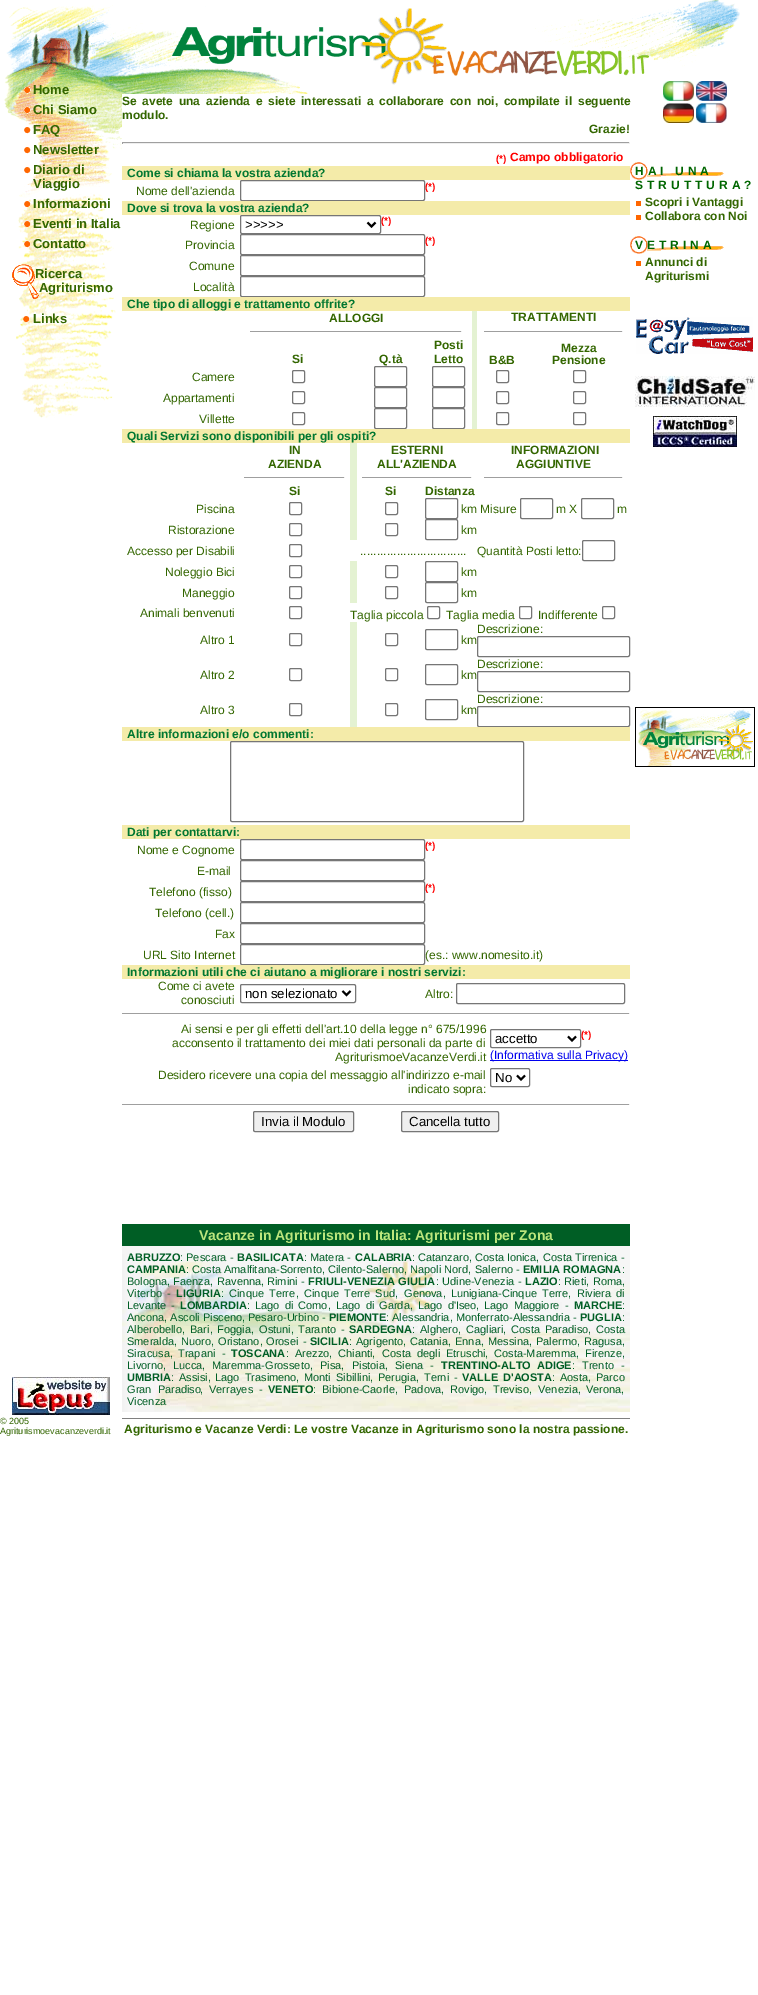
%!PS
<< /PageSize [758 1995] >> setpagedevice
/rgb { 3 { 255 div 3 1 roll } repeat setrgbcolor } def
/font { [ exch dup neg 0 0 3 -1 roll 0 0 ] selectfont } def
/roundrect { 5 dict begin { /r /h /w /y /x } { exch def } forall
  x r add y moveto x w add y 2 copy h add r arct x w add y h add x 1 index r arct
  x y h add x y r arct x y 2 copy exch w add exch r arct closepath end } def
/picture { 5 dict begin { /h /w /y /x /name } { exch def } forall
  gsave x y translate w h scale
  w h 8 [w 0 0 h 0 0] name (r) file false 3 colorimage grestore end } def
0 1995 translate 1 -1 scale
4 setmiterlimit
255 255 255 rgb
0 0 758 1995 rectfill
(img/1.rgb) 4 0 736 418 picture
(img/2.rgb) 24 87 7 7 picture
(img/3.rgb) 24 107 7 7 picture
(img/4.rgb) 24 127 7 7 picture
(img/4.rgb) 24 147 7 7 picture
(img/4.rgb) 24 167 7 7 picture
(img/5.rgb) 24 201 7 7 picture
(img/6.rgb) 24 221 7 7 picture
(img/7.rgb) 24 241 7 7 picture
(img/8.rgb) 12 264 27 35 picture
(img/9.rgb) 23 316 7 7 picture
[
  [122 94 191 28 255 255 255]
  [122 122 34 6 255 255 255]
  [122 136 45 14 255 255 255]
  [122 142 508 1 159 159 159]
  [629 142 1 2 238 238 238]
  [122 143 508 1 238 238 238]
  [122 142 1 2 159 159 159]
  [138 150 26 1 255 255 255]
  [122 166 508 14 244 235 169]
] { aload pop rgb rectfill } forall
118 118 118 rgb
240.5 180.5 184 20 1.5 roundrect stroke
244 235 169 rgb
122 201 508 14 rectfill
118 118 118 rgb
240.5 215.5 140 18 1.5 roundrect stroke
0 0 0 rgb
2 setlinewidth
367.5 222.5 moveto 371.5 226.5 lineto 375.5 222.5 lineto stroke
118 118 118 rgb
1 setlinewidth
240.5 234.5 184 20 1.5 roundrect stroke
240.5 255.5 184 20 1.5 roundrect stroke
240.5 276.5 184 20 1.5 roundrect stroke
[
  [122 297 508 14 244 235 169]
  [472 311 5 118 228 242 210]
  [250 331 212 1 159 159 159]
  [461 331 1 1 238 238 238]
  [484 331 139 1 159 159 159]
  [622 331 1 1 238 238 238]
] { aload pop rgb rectfill } forall
118 118 118 rgb
292.5 370.5 12 12 1.5 roundrect stroke
374.5 366.5 32 20 1.5 roundrect stroke
432.5 366.5 32 20 1.5 roundrect stroke
496.5 370.5 12 12 1.5 roundrect stroke
573.5 370.5 12 12 1.5 roundrect stroke
292.5 391.5 12 12 1.5 roundrect stroke
374.5 387.5 32 20 1.5 roundrect stroke
432.5 387.5 32 20 1.5 roundrect stroke
496.5 391.5 12 12 1.5 roundrect stroke
573.5 391.5 12 12 1.5 roundrect stroke
292.5 412.5 12 12 1.5 roundrect stroke
374.5 408.5 32 20 1.5 roundrect stroke
432.5 408.5 32 20 1.5 roundrect stroke
496.5 412.5 12 12 1.5 roundrect stroke
573.5 412.5 12 12 1.5 roundrect stroke
[
  [122 429 508 14 244 235 169]
  [350 443 7 97 228 242 210]
  [244 477 101 1 159 159 159]
  [344 477 1 1 238 238 238]
  [362 477 110 1 159 159 159]
  [471 477 1 1 238 238 238]
  [484 477 139 1 159 159 159]
  [622 477 1 1 238 238 238]
] { aload pop rgb rectfill } forall
118 118 118 rgb
289.5 502.5 12 12 1.5 roundrect stroke
385.5 502.5 12 12 1.5 roundrect stroke
425.5 498.5 32 20 1.5 roundrect stroke
520.5 498.5 32 20 1.5 roundrect stroke
581.5 498.5 32 20 1.5 roundrect stroke
289.5 523.5 12 12 1.5 roundrect stroke
385.5 523.5 12 12 1.5 roundrect stroke
425.5 519.5 32 20 1.5 roundrect stroke
289.5 544.5 12 12 1.5 roundrect stroke
582.5 540.5 32 20 1.5 roundrect stroke
289.5 565.5 12 12 1.5 roundrect stroke
228 242 210 rgb
350 561 7 42 rectfill
118 118 118 rgb
385.5 565.5 12 12 1.5 roundrect stroke
425.5 561.5 32 20 1.5 roundrect stroke
289.5 586.5 12 12 1.5 roundrect stroke
385.5 586.5 12 12 1.5 roundrect stroke
425.5 582.5 32 20 1.5 roundrect stroke
289.5 606.5 12 12 1.5 roundrect stroke
427.5 606.5 12 12 1.5 roundrect stroke
519.5 606.5 12 12 1.5 roundrect stroke
602.5 606.5 12 12 1.5 roundrect stroke
228 242 210 rgb
350 622 7 105 rectfill
118 118 118 rgb
477.5 636.5 152 20 1.5 roundrect stroke
289.5 633.5 12 12 1.5 roundrect stroke
385.5 633.5 12 12 1.5 roundrect stroke
425.5 629.5 32 20 1.5 roundrect stroke
477.5 671.5 152 20 1.5 roundrect stroke
289.5 668.5 12 12 1.5 roundrect stroke
385.5 668.5 12 12 1.5 roundrect stroke
425.5 664.5 32 20 1.5 roundrect stroke
477.5 706.5 152 20 1.5 roundrect stroke
289.5 703.5 12 12 1.5 roundrect stroke
385.5 703.5 12 12 1.5 roundrect stroke
425.5 699.5 32 20 1.5 roundrect stroke
244 235 169 rgb
122 727 508 14 rectfill
118 118 118 rgb
230.5 741.5 293 80 1.5 roundrect stroke
244 235 169 rgb
122 825 508 14 rectfill
118 118 118 rgb
240.5 839.5 184 20 1.5 roundrect stroke
240.5 860.5 184 20 1.5 roundrect stroke
240.5 881.5 184 20 1.5 roundrect stroke
240.5 902.5 184 20 1.5 roundrect stroke
240.5 923.5 184 20 1.5 roundrect stroke
240.5 944.5 184 20 1.5 roundrect stroke
244 235 169 rgb
122 965 508 14 rectfill
118 118 118 rgb
240.5 984.5 115 18 1.5 roundrect stroke
0 0 0 rgb
2 setlinewidth
342.5 991 moveto 346.5 995 lineto 350.5 991 lineto stroke
118 118 118 rgb
1 setlinewidth
456.5 983.5 168 20 1.5 roundrect stroke
159 159 159 rgb
122 1013 508 1 rectfill
238 238 238 rgb
629 1013 1 1 rectfill
118 118 118 rgb
490.5 1029.5 90 18 1.5 roundrect stroke
0 0 0 rgb
2 setlinewidth
568 1036.5 moveto 572 1040.5 lineto 576 1036.5 lineto stroke
0 0 238 rgb
490 1060 138 1 rectfill
118 118 118 rgb
1 setlinewidth
490.5 1068.5 39 18 1.5 roundrect stroke
0 0 0 rgb
2 setlinewidth
517 1075.5 moveto 521 1079.5 lineto 525 1075.5 lineto stroke
159 159 159 rgb
122 1104 508 1 rectfill
238 238 238 rgb
629 1104 1 1 rectfill
239 239 239 rgb
253.5 1111.5 100 20 1.5 roundrect gsave fill grestore
118 118 118 rgb
1 setlinewidth
stroke
239 239 239 rgb
401.5 1111.5 97 20 1.5 roundrect gsave fill grestore
118 118 118 rgb
stroke
(img/10.rgb) 663 81 31 20 picture
(img/11.rgb) 696 81 31 20 picture
(img/12.rgb) 663 103 31 20 picture
(img/13.rgb) 696 103 31 20 picture
(img/14.rgb) 630 162 94 18 picture
255 102 0 rgb
636 201 5 5 rectfill
636 215 5 5 rectfill
(img/14.rgb) 630 236 94 18 picture
636 261 5 5 rectfill
(img/15.rgb) 636 317 117 37 picture
(img/16.rgb) 635 376 120 31 picture
(img/17.rgb) 653 416 84 31 picture
(img/18.rgb) 635 707 120 60 picture
(img/19.rgb) 12 1377 98 38 picture
0 94 37 rgb
122 1224 508 22 rectfill
(img/20.rgb) 122 1246 508 166 picture
128 128 128 rgb
122 1418 508 1 rectfill
/LiberationSans-Bold 13 font
51 102 0 rgb
[
  [(Home) 33 94]
  [(Chi Siamo) 33 114]
  [(FAQ) 33 134]
  [(Newsletter) 33 154]
  [(Diario di) 33 174]
  [(Viaggio) 33 188]
  [(Informazioni) 33 208]
  [(Eventi in Italia) 33 228]
  [(Contatto) 33 248]
  [(Ricerca) 35 278]
  [(Agriturismo) 39 292]
  [(Links) 33 323]
] { aload pop moveto show } forall
/LiberationSans-Bold 12 font
122 105 moveto 2.4 0 32 (Se avete una azienda e siete interessati a collaborare con noi, compilate il seguente) widthshow
122 119 moveto (modulo.) show
589 133 moveto (Grazie!) show
/LiberationSans-Bold 10 font
255 0 0 rgb
496 162 moveto (\(*\)) show
/LiberationSans-Bold 12 font
510 161 moveto (Campo obbligatorio) show
0 119 49 rgb
127 177 moveto (Come si chiama la vostra azienda?) show
/LiberationSans-Regular 12 font
51 102 0 rgb
136 195 moveto (Nome dell'azienda) show
/LiberationSans-Bold 10 font
255 0 0 rgb
425 190 moveto (\(*\)) show
/LiberationSans-Bold 12 font
0 119 49 rgb
127 212 moveto (Dove si trova la vostra azienda?) show
/LiberationSans-Regular 12 font
51 102 0 rgb
190 229 moveto (Regione) show
/LiberationSans-Regular 13.25 font
0 0 0 rgb
245 229 moveto (>>>>>) show
/LiberationSans-Bold 10 font
255 0 0 rgb
381 224 moveto (\(*\)) show
/LiberationSans-Regular 12 font
51 102 0 rgb
185 249 moveto (Provincia) show
/LiberationSans-Bold 10 font
255 0 0 rgb
425 244 moveto (\(*\)) show
/LiberationSans-Regular 12 font
51 102 0 rgb
189 270 moveto (Comune) show
193 291 moveto (Località) show
/LiberationSans-Bold 12 font
0 119 49 rgb
127 308 moveto (Che tipo di alloggi e trattamento offrite?) show
51 102 0 rgb
[
  [(ALLOGGI) 329 322]
  [(TRATTAMENTI) 511 321]
  [(Si) 292 363]
  [(Q.tà) 379 363]
  [(Posti) 434 349]
  [(Letto) 434 363]
  [(B&B) 489 364]
  [(Mezza) 561 352]
  [(Pensione) 552 364]
] { aload pop moveto show } forall
/LiberationSans-Regular 12 font
[
  [(Camere) 192 381]
  [(Appartamenti) 163 402]
  [(Villette) 199 423]
] { aload pop moveto show } forall
/LiberationSans-Bold 12 font
0 119 49 rgb
127 440 moveto (Quali Servizi sono disponibili per gli ospiti?) show
51 102 0 rgb
[
  [(IN) 289 454]
  [(AZIENDA) 268 468]
  [(ESTERNI) 391 454]
  [(ALL'AZIENDA) 377 468]
  [(INFORMAZIONI) 511 454]
  [(AGGIUNTIVE) 516 468]
  [(Si) 289 495]
  [(Si) 385 495]
  [(Distanza) 425 495]
] { aload pop moveto show } forall
/LiberationSans-Regular 12 font
[
  [(Piscina) 196 513]
  [(km Misure) 461 513]
  [(m X) 556 513]
  [(m) 617 513]
  [(Ristorazione) 168 534]
  [(km) 461 534]
  [(Accesso per Disabili) 127 555]
  [(................................) 360 555]
  [(Quantità Posti letto:) 477 555]
  [(Noleggio Bici) 165 576]
  [(km) 461 576]
  [(Maneggio) 182 597]
  [(km) 461 597]
  [(Animali benvenuti) 140 617]
  [(Taglia piccola) 350 619]
  [(Taglia media) 446 619]
  [(Indifferente) 538 619]
  [(Descrizione:) 477 633]
  [(Altro 1) 200 644]
  [(km) 461 644]
  [(Descrizione:) 477 668]
  [(Altro 2) 200 679]
  [(km) 461 679]
  [(Descrizione:) 477 703]
  [(Altro 3) 200 714]
  [(km) 461 714]
] { aload pop moveto show } forall
/LiberationSans-Bold 12 font
0 119 49 rgb
127 738 moveto (Altre informazioni e/o commenti:) show
127 836 moveto (Dati per contattarvi:) show
/LiberationSans-Regular 12 font
51 102 0 rgb
137 854 moveto (Nome e Cognome) show
/LiberationSans-Bold 10 font
255 0 0 rgb
425 849 moveto (\(*\)) show
/LiberationSans-Regular 12 font
51 102 0 rgb
197 875 moveto (E-mail) show
149 896 moveto (Telefono \(fisso\)) show
/LiberationSans-Bold 10 font
255 0 0 rgb
425 891 moveto (\(*\)) show
/LiberationSans-Regular 12 font
51 102 0 rgb
[
  [(Telefono \(cell.\)) 155 917]
  [(Fax) 215 938]
  [(URL Sito Internet) 143 959]
  [(\(es.: www.nomesito.it\)) 425 959]
] { aload pop moveto show } forall
/LiberationSans-Bold 12 font
0 119 49 rgb
127 976 moveto (Informazioni utili che ci aiutano a migliorare i nostri servizi:) show
/LiberationSans-Regular 12 font
51 102 0 rgb
158 990 moveto (Come ci avete) show
181 1004 moveto (conosciuti) show
/LiberationSans-Regular 13.25 font
0 0 0 rgb
245 998 moveto (non selezionato) show
/LiberationSans-Regular 12 font
51 102 0 rgb
[
  [(Altro:) 425 998]
  [(Ai sensi e per gli effetti dell'art.10 della legge n° 675/1996) 181 1033]
  [(acconsento il trattamento dei miei dati personali da parte di) 172 1047]
  [(AgriturismoeVacanzeVerdi.it) 335 1061]
] { aload pop moveto show } forall
/LiberationSans-Regular 13.25 font
0 0 0 rgb
495 1043 moveto (accetto) show
/LiberationSans-Bold 10 font
255 0 0 rgb
581 1038 moveto (\(*\)) show
/LiberationSans-Regular 12 font
0 0 238 rgb
490 1059 moveto (\(Informativa sulla Privacy\)) show
51 102 0 rgb
158 1079 moveto (Desidero ricevere una copia del messaggio all'indirizzo e-mail) show
408 1093 moveto (indicato sopra:) show
/LiberationSans-Regular 13.25 font
0 0 0 rgb
[
  [(No) 495 1082]
  [(Invia il Modulo) 261 1126]
  [(Cancella tutto) 409 1126]
] { aload pop moveto show } forall
/LiberationSans-Bold 12 font
0 102 0 rgb
635 175 moveto 4 0 (HAI UNA) ashow
635 189 moveto 4 0 (STRUTTURA?) ashow
51 102 0 rgb
645 206 moveto (Scopri i Vantaggi) show
645 220 moveto (Collabora con Noi) show
0 102 0 rgb
635 249 moveto 4 0 (VETRINA) ashow
51 102 0 rgb
645 266 moveto (Annunci di) show
645 280 moveto (Agriturismi) show
/LiberationSans-Regular 9 font
0 1424 moveto (© 2005) show
0 1434 moveto (Agriturismoevacanzeverdi.it) show
/LiberationSans-Bold 14 font
188 230 125 rgb
199 1240 moveto (Vacanze in Agriturismo in Italia: Agriturismi per Zona) show
/LiberationSans-Bold 11 font
0 94 37 rgb
127 1261 moveto (ABRUZZO) show
/LiberationSans-Regular 11 font
180 1261 moveto (: Pescara -) show
/LiberationSans-Bold 11 font
237 1261 moveto (BASILICATA) show
/LiberationSans-Regular 11 font
304 1261 moveto (: Matera -) show
/LiberationSans-Bold 11 font
355 1261 moveto (CALABRIA) show
/LiberationSans-Regular 11 font
412 1261 moveto (: Catanzaro, Costa Ionica,) show
543 1261 moveto (Costa Tirrenica -) show
/LiberationSans-Bold 11 font
127 1273 moveto (CAMPANIA) show
/LiberationSans-Regular 11 font
[
  [(: Costa Amalfitana-Sorrento,) 186 1273]
  [(Cilento-Salerno, Napoli Nord,) 328 1273]
  [(Salerno -) 475 1273]
] { aload pop moveto show } forall
/LiberationSans-Bold 11 font
523 1273 moveto (EMILIA ROMAGNA) show
/LiberationSans-Regular 11 font
[
  [(:) 622 1273]
  [(Bologna,) 127 1285]
  [(Faenza,) 173 1285]
  [(Ravenna,) 217 1285]
  [(Rimini -) 267 1285]
] { aload pop moveto show } forall
/LiberationSans-Bold 11 font
308 1285 moveto (FRIULI-VENEZIA) show
398 1285 moveto (GIULIA) show
/LiberationSans-Regular 11 font
[
  [(:) 436 1285]
  [(Udine-Venezia) 442 1285]
  [(-) 518 1285]
] { aload pop moveto show } forall
/LiberationSans-Bold 11 font
525 1285 moveto (LAZIO) show
/LiberationSans-Regular 11 font
558 1285 moveto (: Rieti,) show
593 1285 moveto (Roma,) show
127 1297 moveto 2 0 32 (Viterbo -) widthshow
/LiberationSans-Bold 11 font
176 1297 moveto (LIGURIA) show
/LiberationSans-Regular 11 font
221 1297 moveto (:) show
229 1297 moveto 2 0 32 (Cinque Terre) widthshow
296 1297 moveto (,) show
304 1297 moveto 2 0 32 (Cinque Terre Sud) widthshow
395 1297 moveto (,) show
404 1297 moveto 2 0 32 (Genova, Lunigiana-Cinque Terre,) widthshow
577 1297 moveto 2 0 32 (Riviera di) widthshow
127 1309 moveto (Levante) show
171 1309 moveto (-) show
/LiberationSans-Bold 11 font
180 1309 moveto (LOMBARDIA) show
/LiberationSans-Regular 11 font
247 1309 moveto (:) show
255 1309 moveto 2 0 32 (Lago di Como) widthshow
336 1309 moveto 2 0 32 (Lago di Garda) widthshow
418 1309 moveto 2 0 32 (Lago d'Iseo) widthshow
484 1309 moveto 2 0 32 (Lago Maggiore) widthshow
565 1309 moveto (-) show
/LiberationSans-Bold 11 font
574 1309 moveto (MARCHE) show
/LiberationSans-Regular 11 font
[
  [(:) 622 1309]
  [(,) 328 1309]
  [(,) 410 1309]
  [(,) 476 1309]
  [(Ancona, Ascoli Pisceno, Pesaro-Urbino -) 127 1321]
] { aload pop moveto show } forall
/LiberationSans-Bold 11 font
329 1321 moveto (PIEMONTE) show
/LiberationSans-Regular 11 font
386 1321 moveto (: Alessandria, Monferrato-Alessandria -) show
/LiberationSans-Bold 11 font
580 1321 moveto (PUGLIA) show
/LiberationSans-Regular 11 font
[
  [(:) 622 1321]
  [(Alberobello,) 127 1333]
  [(Bari,) 190 1333]
  [(Foggia,) 217 1333]
  [(Ostuni,) 259 1333]
  [(Taranto) 298 1333]
  [(-) 341 1333]
] { aload pop moveto show } forall
/LiberationSans-Bold 11 font
349 1333 moveto (SARDEGNA) show
/LiberationSans-Regular 11 font
[
  [(:) 412 1333]
  [(Alghero,) 420 1333]
  [(Cagliari,) 466 1333]
] { aload pop moveto show } forall
511 1333 moveto 2 0 32 (Costa Paradiso) widthshow
[
  [(Costa) 596 1333]
  [(,) 588 1333]
  [(Smeralda,) 127 1345]
  [(Nuoro,) 181 1345]
  [(Oristano,) 218 1345]
  [(Orosei) 266 1345]
  [(-) 303 1345]
] { aload pop moveto show } forall
/LiberationSans-Bold 11 font
310 1345 moveto (SICILIA) show
/LiberationSans-Regular 11 font
[
  [(:) 349 1345]
  [(Agrigento,) 356 1345]
  [(Catania,) 410 1345]
  [(Enna,) 455 1345]
  [(Messina,) 488 1345]
  [(Palermo,) 536 1345]
  [(Ragusa,) 584 1345]
  [(Siracusa,) 127 1357]
  [(Trapani) 178 1357]
  [(-) 222 1357]
] { aload pop moveto show } forall
/LiberationSans-Bold 11 font
231 1357 moveto (TOSCANA) show
/LiberationSans-Regular 11 font
[
  [(:) 286 1357]
  [(Arezzo,) 295 1357]
  [(Chianti,) 338 1357]
] { aload pop moveto show } forall
382 1357 moveto 3 0 32 (Costa degli Etruschi) widthshow
[
  [(Costa-Maremma,) 494 1357]
  [(Firenze,) 585 1357]
  [(,) 485 1357]
  [(Livorno,) 127 1369]
  [(Lucca,) 173 1369]
  [(Maremma-Grosseto,) 212 1369]
  [(Pisa,) 320 1369]
  [(Pistoia,) 352 1369]
  [(Siena) 395 1369]
  [(-) 430 1369]
] { aload pop moveto show } forall
/LiberationSans-Bold 11 font
441 1369 moveto (TRENTINO-ALTO) show
537 1369 moveto (ADIGE) show
/LiberationSans-Regular 11 font
[
  [(:) 572 1369]
  [(Trento) 582 1369]
  [(-) 621 1369]
] { aload pop moveto show } forall
/LiberationSans-Bold 11 font
127 1381 moveto (UMBRIA) show
/LiberationSans-Regular 11 font
171 1381 moveto (:) show
179 1381 moveto (Assisi,) show
215 1381 moveto 2 0 32 (Lago Trasimeno) widthshow
304 1381 moveto 2 0 32 (Monti Sibillini) widthshow
[
  [(Perugia,) 378 1381]
  [(Terni) 424 1381]
  [(-) 454 1381]
] { aload pop moveto show } forall
/LiberationSans-Bold 11 font
462 1381 moveto (VALLE) show
503 1381 moveto (D'AOSTA) show
/LiberationSans-Regular 11 font
[
  [(:) 552 1381]
  [(Aosta,) 560 1381]
  [(Parco) 596 1381]
  [(,) 296 1381]
  [(,) 370 1381]
] { aload pop moveto show } forall
127 1393 moveto 3 0 32 (Gran Paradiso) widthshow
209 1393 moveto (Verrayes) show
259 1393 moveto (-) show
/LiberationSans-Bold 11 font
268 1393 moveto (VENETO) show
/LiberationSans-Regular 11 font
[
  [(:) 313 1393]
  [(Bibione-Caorle,) 322 1393]
  [(Padova,) 404 1393]
  [(Rovigo,) 450 1393]
  [(Treviso,) 493 1393]
  [(Venezia,) 538 1393]
  [(Verona,) 586 1393]
  [(,) 200 1393]
  [(Vicenza) 127 1405]
] { aload pop moveto show } forall
/LiberationSans-Bold 12 font
51 102 0 rgb
124 1433 moveto (Agriturismo e Vacanze Verdi: Le vostre Vacanze in Agriturismo sono la nostra passione.) show
showpage
